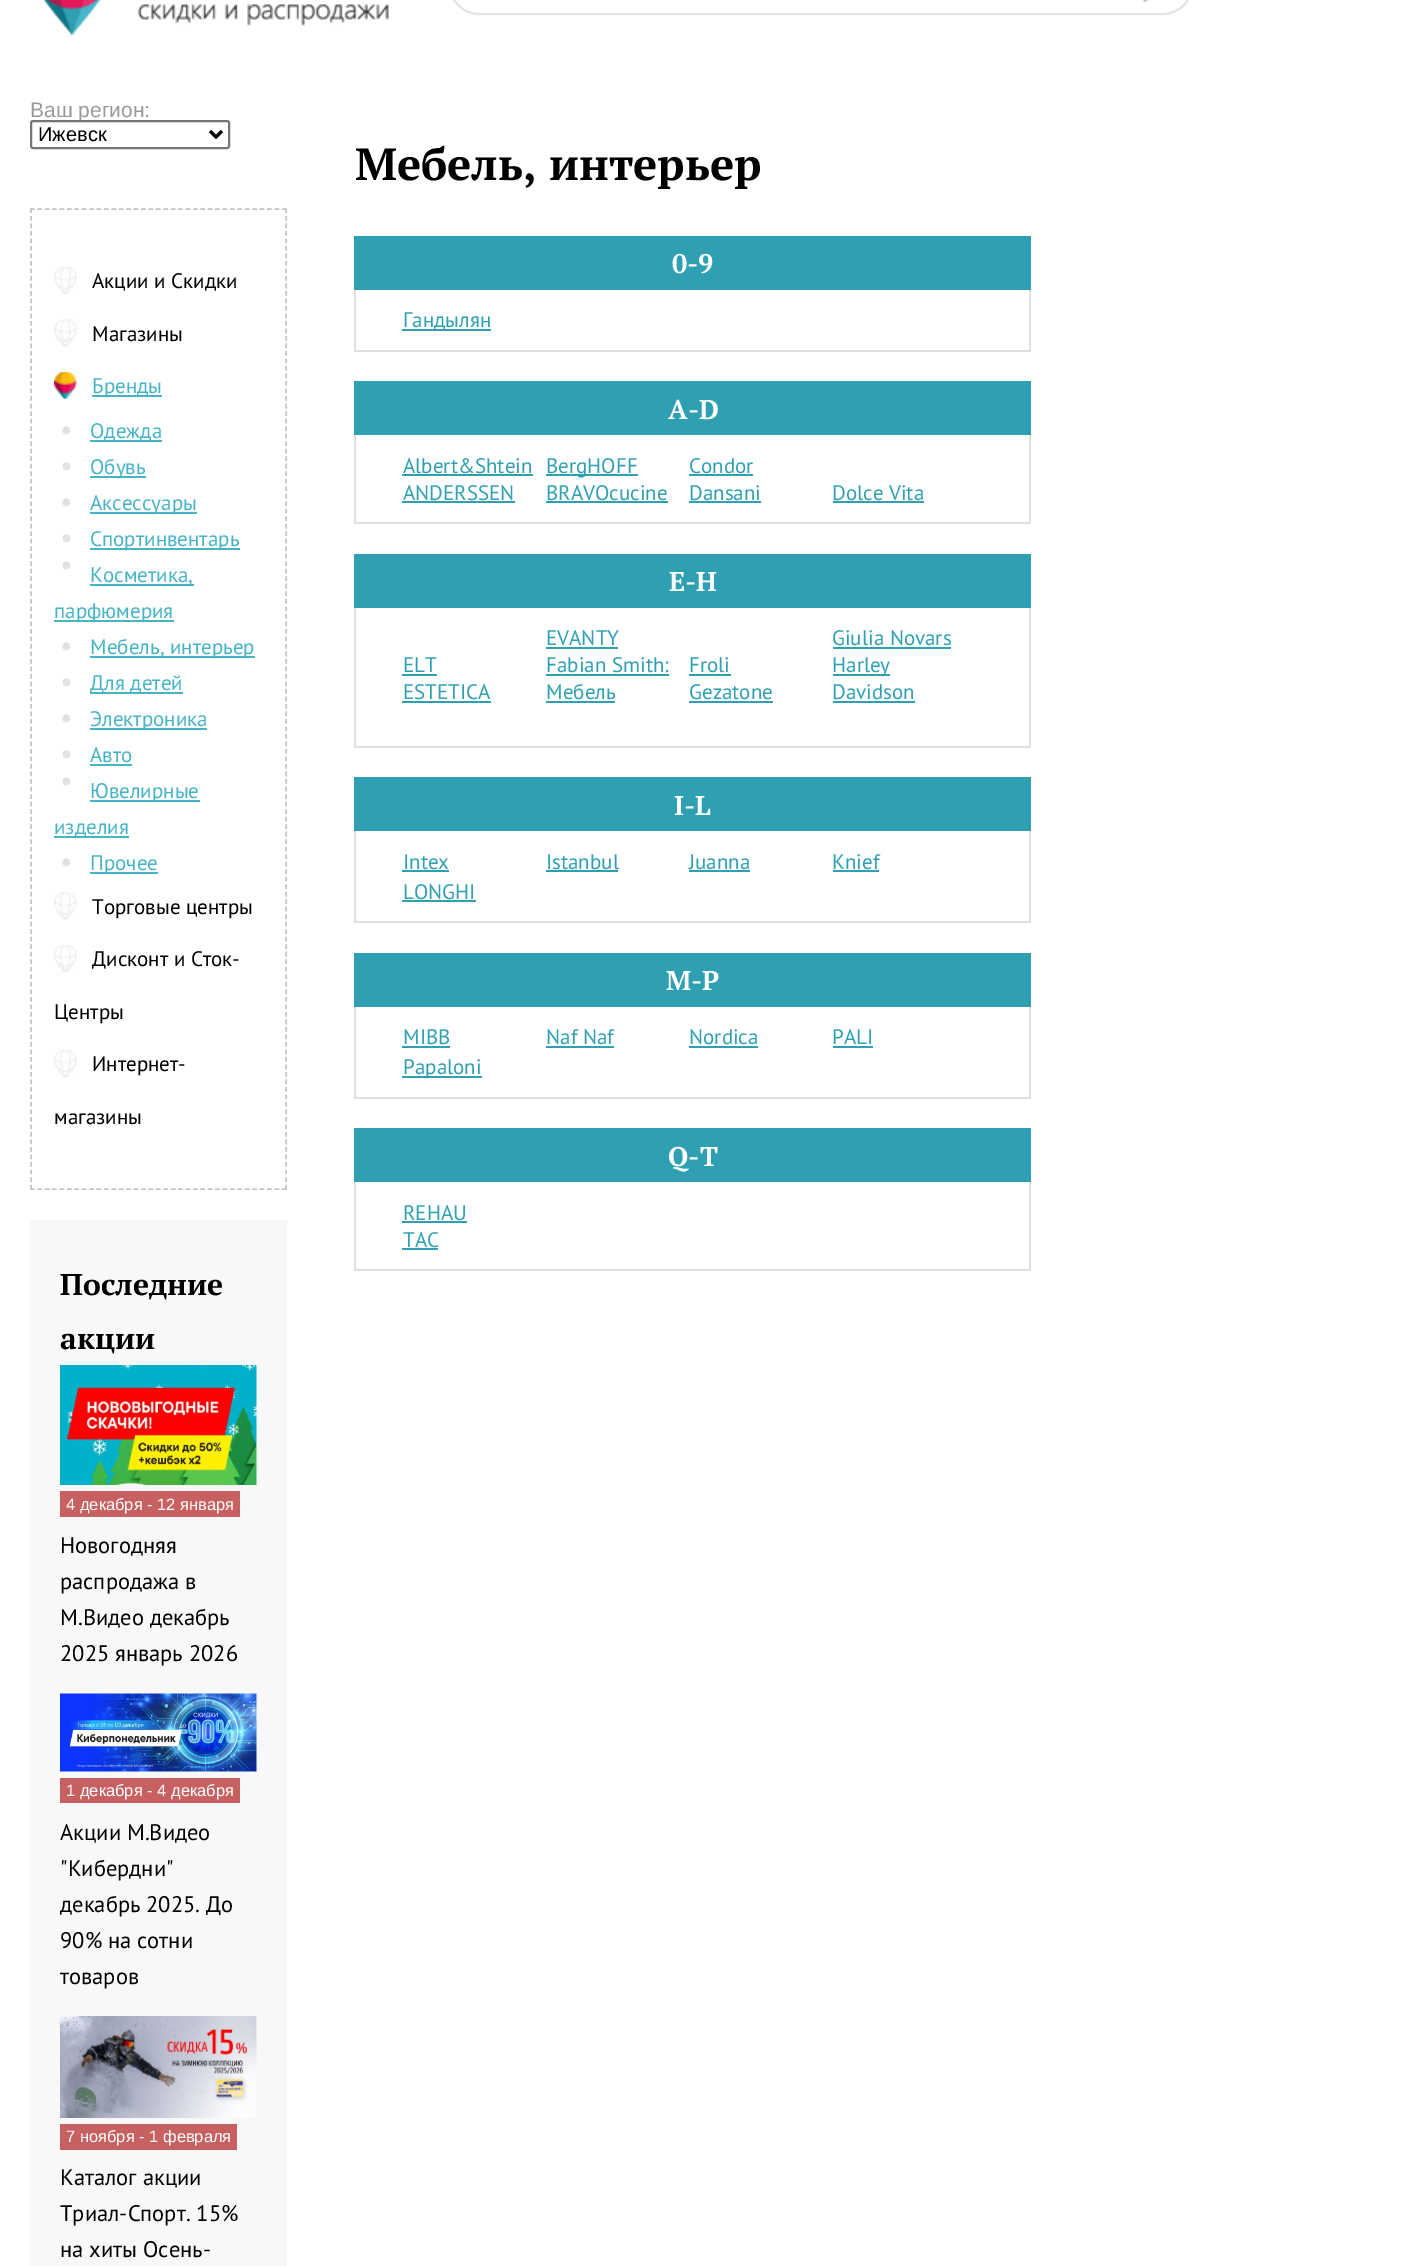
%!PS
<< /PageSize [1413 2266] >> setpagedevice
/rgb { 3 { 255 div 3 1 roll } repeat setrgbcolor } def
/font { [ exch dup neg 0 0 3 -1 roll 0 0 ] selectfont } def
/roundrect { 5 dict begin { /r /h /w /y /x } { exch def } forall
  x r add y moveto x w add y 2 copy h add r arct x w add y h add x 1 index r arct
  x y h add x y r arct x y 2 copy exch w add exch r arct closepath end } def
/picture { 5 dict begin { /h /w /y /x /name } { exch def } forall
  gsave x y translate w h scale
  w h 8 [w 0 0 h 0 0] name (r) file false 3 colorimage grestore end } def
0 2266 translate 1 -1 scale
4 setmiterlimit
255 255 255 rgb
0 0 1413 2266 rectfill
(img/1.rgb) 43 0 346 36 picture
228 228 227 rgb
2 setlinewidth
450 -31 742 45 29 roundrect stroke
(img/2.rgb) 1142 0 6 3 picture
196 196 196 rgb
1.5 setlinewidth
[4.5 2.91] 0 setdash
30 209 moveto 286.5 209 lineto stroke
[4.5 3.01] 0 setdash
286 208.5 moveto 286 1189.5 lineto stroke
[4.5 2.91] 0 setdash
30 1189 moveto 286.5 1189 lineto stroke
[4.5 3.01] 0 setdash
31 208.5 moveto 31 1189.5 lineto stroke
(img/3.rgb) 54 267 23 27 picture
(img/4.rgb) 54 319 23 28 picture
(img/5.rgb) 54 372 23 27 picture
[
  [92 395 70 2 71 180 197]
  [90 440 72 2 71 180 197]
  [90 476 56 2 71 180 197]
  [90 512 107 2 71 180 197]
  [90 548 150 2 71 180 197]
  [90 584 104 2 71 180 197]
  [54 620 120 2 71 180 197]
  [90 656 165 2 71 180 197]
  [90 692 93 2 71 180 197]
  [90 728 117 2 71 180 197]
  [90 764 42 2 71 180 197]
  [90 800 110 2 71 180 197]
  [54 836 75 2 71 180 197]
  [90 872 68 2 71 180 197]
] { aload pop rgb rectfill } forall
(img/4.rgb) 54 892 23 28 picture
(img/3.rgb) 54 945 23 27 picture
(img/3.rgb) 54 1050 23 27 picture
248 248 248 rgb
30 1220 257 1046 rectfill
(img/6.rgb) 60 1365 197 120 picture
199 97 97 rgb
60 1491 180 26 rectfill
(img/7.rgb) 60 1693 197 79 picture
60 1778 180 25 rectfill
(img/8.rgb) 60 2016 197 102 picture
[
  [60 2124 177 26 199 97 97]
  [354 236 677 54 46 160 177]
  [1029 290 2 61 223 223 223]
  [354 350 677 2 223 223 223]
  [354 290 2 61 223 223 223]
  [402 329 89 2 46 160 177]
  [354 381 677 54 46 160 177]
  [1029 435 2 89 223 223 223]
  [354 522 677 2 223 223 223]
  [354 435 2 89 223 223 223]
  [402 474 131 2 46 160 177]
  [402 501 113 2 46 160 177]
  [546 474 92 2 46 160 177]
  [546 501 122 2 46 160 177]
  [689 474 64 2 46 160 177]
  [689 501 72 2 46 160 177]
  [833 501 91 2 46 160 177]
  [354 554 677 54 46 160 177]
  [1029 608 2 139 223 223 223]
  [354 746 677 2 223 223 223]
  [354 608 2 139 223 223 223]
  [402 674 35 2 46 160 177]
  [402 701 89 2 46 160 177]
  [546 647 72 2 46 160 177]
  [546 674 123 2 46 160 177]
  [546 701 69 2 46 160 177]
  [689 674 42 2 46 160 177]
  [689 701 84 2 46 160 177]
  [833 647 118 2 46 160 177]
  [833 674 57 2 46 160 177]
  [833 701 82 2 46 160 177]
  [354 777 677 54 46 160 177]
  [1029 831 2 92 223 223 223]
  [354 921 677 2 223 223 223]
  [354 831 2 92 223 223 223]
  [402 870 47 2 46 160 177]
  [546 870 72 2 46 160 177]
  [689 870 61 2 46 160 177]
  [833 870 46 2 46 160 177]
  [402 900 74 2 46 160 177]
  [354 953 677 54 46 160 177]
  [1029 1007 2 91 223 223 223]
  [354 1097 677 2 223 223 223]
  [354 1007 2 91 223 223 223]
  [402 1046 48 2 46 160 177]
  [546 1046 68 2 46 160 177]
  [689 1046 69 2 46 160 177]
  [833 1046 40 2 46 160 177]
  [402 1076 80 2 46 160 177]
  [354 1128 677 54 46 160 177]
  [1029 1182 2 89 223 223 223]
  [354 1269 677 2 223 223 223]
  [354 1182 2 89 223 223 223]
  [402 1221 65 2 46 160 177]
  [402 1248 36 2 46 160 177]
] { aload pop rgb rectfill } forall
/LiberationSans-Regular 21 font
153 153 153 rgb
30 117 moveto (Ваш регион:) show
255 255 255 rgb
31 121 198 27 2 roundrect gsave fill grestore
118 118 118 rgb
2 setlinewidth
[] 0 setdash
stroke
0 0 0 rgb
3 setlinewidth
210 131 moveto 216 137 lineto 222 131 lineto stroke
/LiberationSans-Regular 20 font
38 141 moveto (Ижевск) show
/PTSans-Regular 21 font
92 288 moveto (Акции и Скидки) show
92 341 moveto (Магазины) show
71 180 197 rgb
92 393 moveto (Бренды) show
/PTSans-Regular 28 font
226 226 226 rgb
60 439 moveto (•) show
/PTSans-Regular 21 font
71 180 197 rgb
90 438 moveto (Одежда) show
/PTSans-Regular 28 font
226 226 226 rgb
60 475 moveto (•) show
/PTSans-Regular 21 font
71 180 197 rgb
90 474 moveto (Обувь) show
/PTSans-Regular 28 font
226 226 226 rgb
60 511 moveto (•) show
/PTSans-Regular 21 font
71 180 197 rgb
90 510 moveto (Аксессуары) show
/PTSans-Regular 28 font
226 226 226 rgb
60 547 moveto (•) show
/PTSans-Regular 21 font
71 180 197 rgb
90 546 moveto (Спортинвентарь) show
/PTSans-Regular 28 font
226 226 226 rgb
60 574 moveto (•) show
/PTSans-Regular 21 font
71 180 197 rgb
90 582 moveto (Косметика,) show
54 618 moveto (парфюмерия) show
/PTSans-Regular 28 font
226 226 226 rgb
60 655 moveto (•) show
/PTSans-Regular 21 font
71 180 197 rgb
90 654 moveto (Мебель, интерьер) show
/PTSans-Regular 28 font
226 226 226 rgb
60 691 moveto (•) show
/PTSans-Regular 21 font
71 180 197 rgb
90 690 moveto (Для детей) show
/PTSans-Regular 28 font
226 226 226 rgb
60 727 moveto (•) show
/PTSans-Regular 21 font
71 180 197 rgb
90 726 moveto (Электроника) show
/PTSans-Regular 28 font
226 226 226 rgb
60 763 moveto (•) show
/PTSans-Regular 21 font
71 180 197 rgb
90 762 moveto (Авто) show
/PTSans-Regular 28 font
226 226 226 rgb
60 790 moveto (•) show
/PTSans-Regular 21 font
71 180 197 rgb
90 798 moveto (Ювелирные) show
54 834 moveto (изделия) show
/PTSans-Regular 28 font
226 226 226 rgb
60 871 moveto (•) show
/PTSans-Regular 21 font
71 180 197 rgb
90 870 moveto (Прочее) show
0 0 0 rgb
[
  [(Торговые центры) 92 914]
  [(Дисконт и Сток-) 92 966]
  [(Центры) 54 1019]
  [(Интернет-) 92 1071]
  [(магазины) 54 1124]
] { aload pop moveto show } forall
/PTSerif-Bold 30 font
60 1295 moveto (Последние) show
60 1349 moveto (акции) show
/LiberationSans-Regular 16.5 font
255 255 255 rgb
66 1510 moveto (4 декабря - 12 января) show
/PTSans-Regular 22.5 font
0 0 0 rgb
[
  [(Новогодняя) 60 1553]
  [(распродажа в) 60 1589]
  [(М.Видео декабрь) 60 1625]
  [(2025 январь 2026) 60 1661]
] { aload pop moveto show } forall
/LiberationSans-Regular 16.5 font
255 255 255 rgb
66 1796 moveto (1 декабря - 4 декабря) show
/PTSans-Regular 22.5 font
0 0 0 rgb
[
  [(Акции М.Видео) 60 1840]
  [("Кибердни") 60 1876]
  [(декабрь 2025. До) 60 1912]
  [(90% на сотни) 60 1948]
  [(товаров) 60 1984]
] { aload pop moveto show } forall
/LiberationSans-Regular 16.5 font
255 255 255 rgb
66 2142 moveto (7 ноября - 1 февраля) show
/PTSans-Regular 22.5 font
0 0 0 rgb
[
  [(Каталог акции) 60 2185]
  [(Триал-Спорт. 15%) 60 2221]
  [(на хиты Осень-) 60 2257]
] { aload pop moveto show } forall
/PTSerif-Bold 45 font
355 180 moveto (Мебель, интерьер) show
/PTSerif-Bold 27 font
255 255 255 rgb
672 273 moveto (0-9) show
/PTSans-Regular 21 font
46 160 177 rgb
403 327 moveto (Гандылян) show
/PTSerif-Bold 27 font
255 255 255 rgb
668 419 moveto (A-D) show
/PTSans-Regular 21 font
46 160 177 rgb
[
  [(Albert&Shtein) 403 473]
  [(ANDERSSEN) 403 500]
  [(BergHOFF) 546 473]
  [(BRAVOcucine) 546 500]
  [(Condor) 689 473]
  [(Dansani) 689 500]
  [(Dolce Vita) 832 500]
] { aload pop moveto show } forall
/PTSerif-Bold 27 font
255 255 255 rgb
669 591 moveto (E-H) show
/PTSans-Regular 21 font
46 160 177 rgb
[
  [(ELT) 403 672]
  [(ESTETICA) 403 699]
  [(EVANTY) 546 645]
  [(Fabian Smith:) 546 672]
  [(Мебель) 546 699]
  [(Froli) 689 672]
  [(Gezatone) 689 699]
  [(Giulia Novars) 832 645]
  [(Harley) 832 672]
  [(Davidson) 832 699]
] { aload pop moveto show } forall
/PTSerif-Bold 27 font
255 255 255 rgb
674 815 moveto (I-L) show
/PTSans-Regular 21 font
46 160 177 rgb
[
  [(Intex) 403 869]
  [(Istanbul) 546 869]
  [(Juanna) 689 869]
  [(Knief) 832 869]
  [(LONGHI) 403 899]
] { aload pop moveto show } forall
/PTSerif-Bold 27 font
255 255 255 rgb
666 990 moveto (M-P) show
/PTSans-Regular 21 font
46 160 177 rgb
[
  [(MIBB) 403 1044]
  [(Naf Naf) 546 1044]
  [(Nordica) 689 1044]
  [(PALI) 832 1044]
  [(Papaloni) 403 1074]
] { aload pop moveto show } forall
/PTSerif-Bold 27 font
255 255 255 rgb
668 1166 moveto (Q-T) show
/PTSans-Regular 21 font
46 160 177 rgb
403 1220 moveto (REHAU) show
403 1247 moveto (TAC) show
showpage
